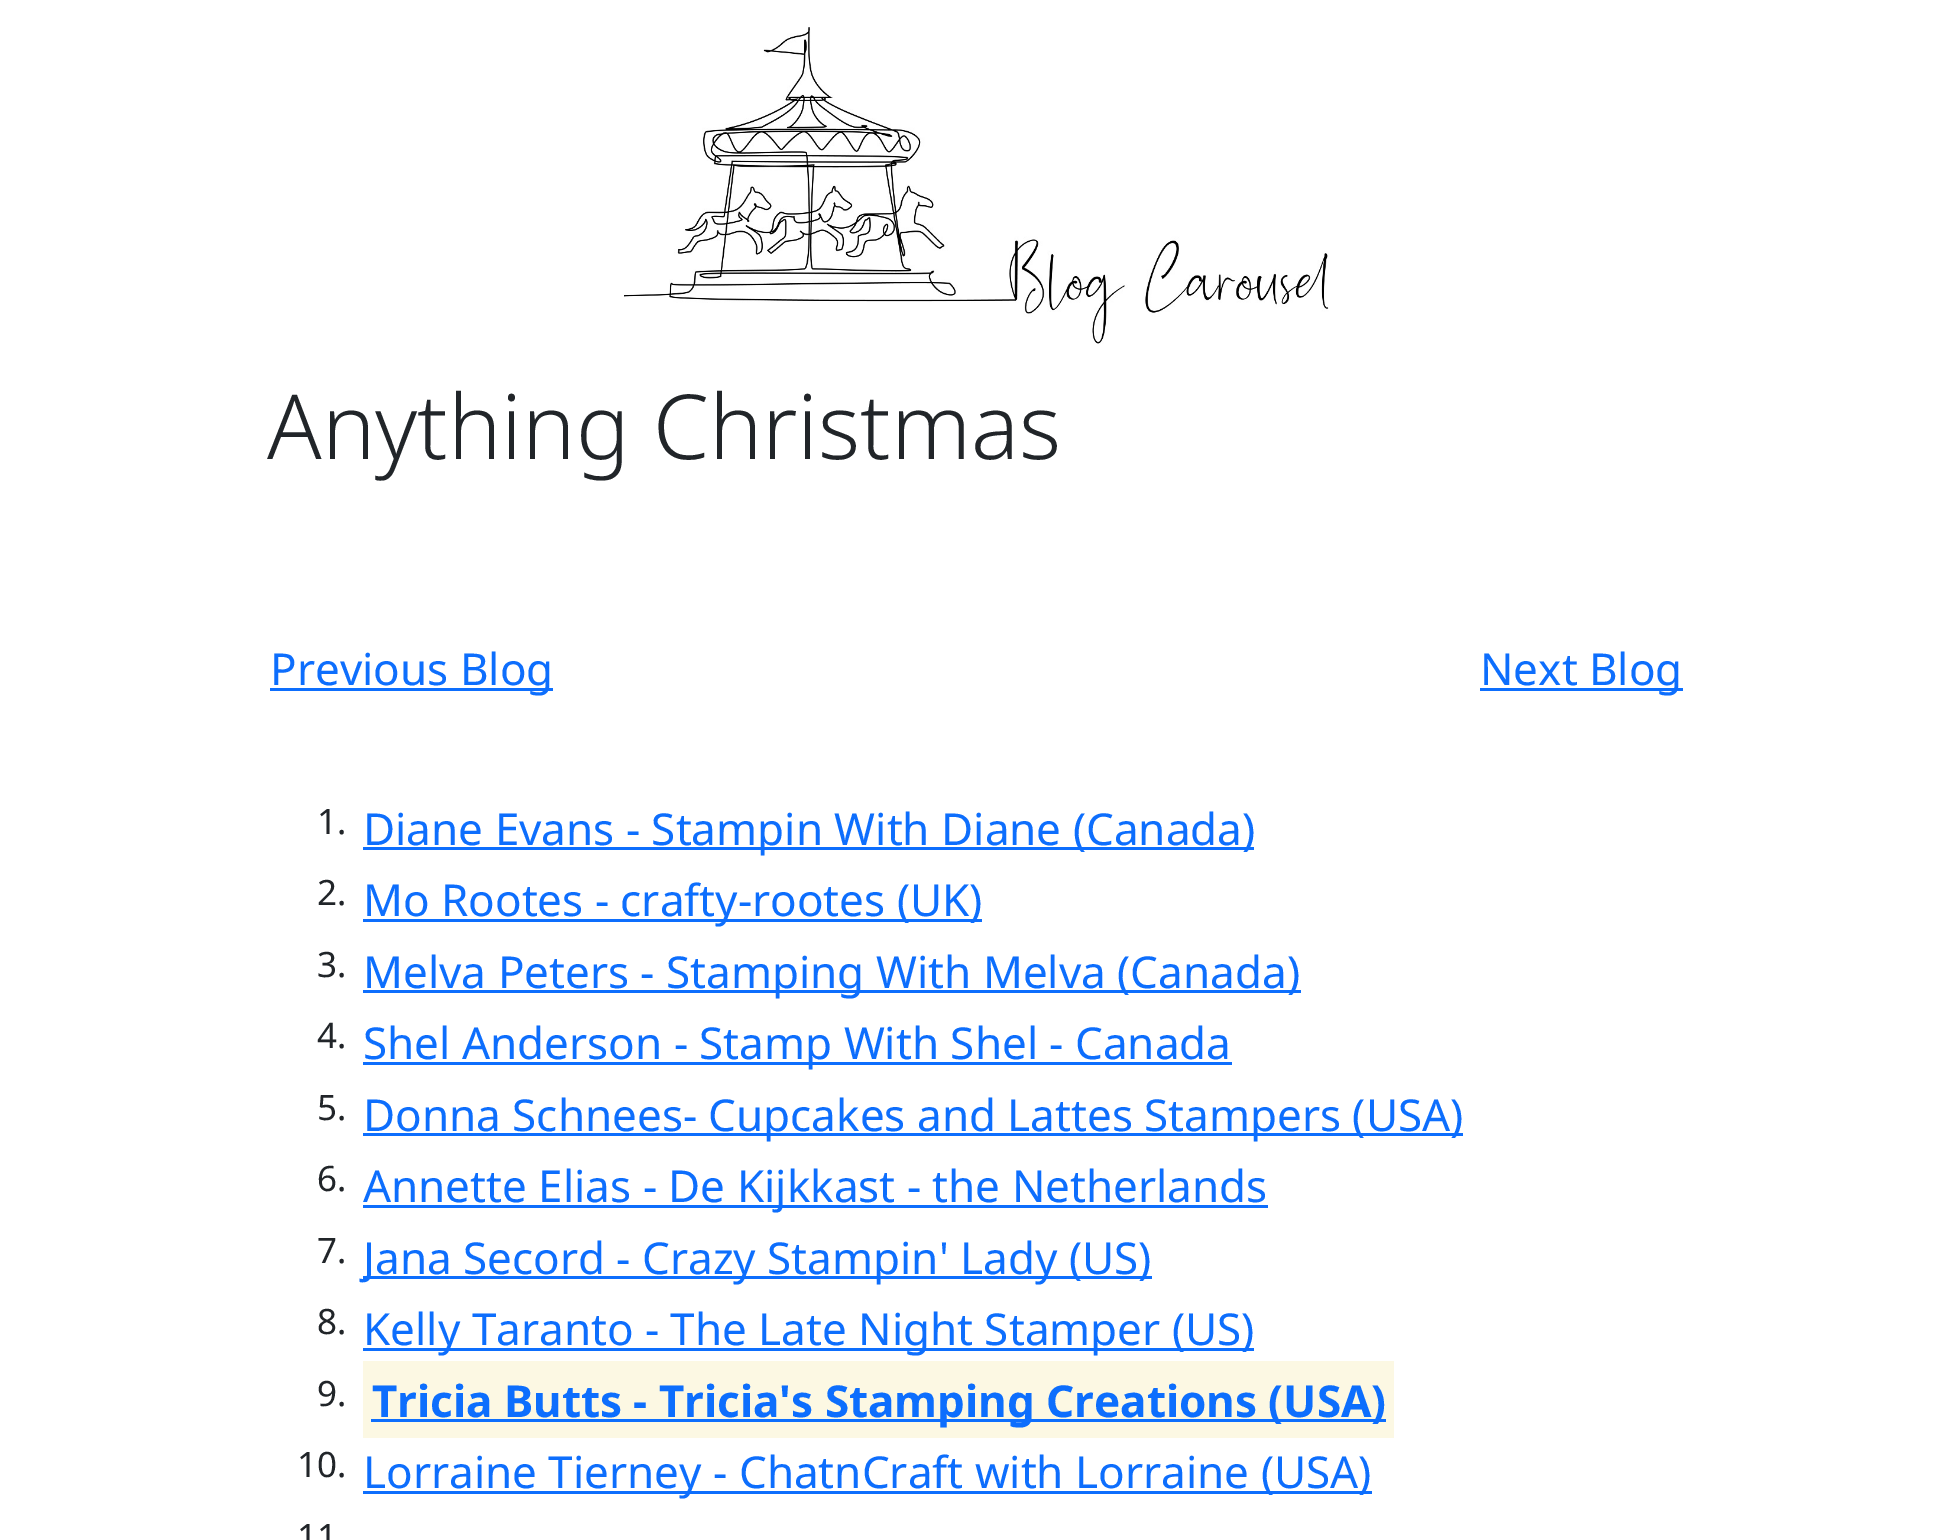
%!PS
<< /PageSize [1950 1540] >> setpagedevice
/rgb { 3 { 255 div 3 1 roll } repeat setrgbcolor } def
/font { [ exch dup neg 0 0 3 -1 roll 0 0 ] selectfont } def
/picture { 5 dict begin { /h /w /y /x /name } { exch def } forall
  gsave x y translate w h scale
  w h 8 [w 0 0 h 0 0] name (r) file false 3 colorimage grestore end } def
0 1540 translate 1 -1 scale
4 setmiterlimit
255 255 255 rgb
0 0 1950 1540 rectfill
(img/1.rgb) 624 27 705 317 picture
[
  [270 688 283 3 13 110 253]
  [1480 688 203 3 13 110 253]
  [363 847 891 3 13 110 253]
  [363 919 619 3 13 110 253]
  [363 990 938 3 13 110 253]
  [363 1062 869 3 13 110 253]
  [363 1133 1100 3 13 110 253]
  [363 1205 905 3 13 110 253]
  [363 1276 789 3 13 110 253]
  [363 1348 891 3 13 110 253]
  [363 1361 1031 77 252 248 227]
  [371 1419 1015 3 13 110 253]
  [363 1491 1009 3 13 110 253]
] { aload pop rgb rectfill } forall
/NotoSans-Light 89.75 font
33 37 41 rgb
267 459 moveto (Anything Christmas) show
/NotoSans-Regular 44 font
13 110 253 rgb
270 685 moveto (Previous Blog) show
1480 685 moveto (Next Blog) show
/NotoSans-Regular 35 font
33 37 41 rgb
317 834 moveto (1.) show
/NotoSans-Regular 44 font
13 110 253 rgb
363 845 moveto (Diane Evans - Stampin With Diane \(Canada\)) show
/NotoSans-Regular 35 font
33 37 41 rgb
317 905 moveto (2.) show
/NotoSans-Regular 44 font
13 110 253 rgb
363 916 moveto (Mo Rootes - crafty-rootes \(UK\)) show
/NotoSans-Regular 35 font
33 37 41 rgb
317 977 moveto (3.) show
/NotoSans-Regular 44 font
13 110 253 rgb
363 988 moveto (Melva Peters - Stamping With Melva \(Canada\)) show
/NotoSans-Regular 35 font
33 37 41 rgb
317 1048 moveto (4.) show
/NotoSans-Regular 44 font
13 110 253 rgb
363 1059 moveto (Shel Anderson - Stamp With Shel - Canada) show
/NotoSans-Regular 35 font
33 37 41 rgb
317 1120 moveto (5.) show
/NotoSans-Regular 44 font
13 110 253 rgb
363 1131 moveto (Donna Schnees- Cupcakes and Lattes Stampers \(USA\)) show
/NotoSans-Regular 35 font
33 37 41 rgb
317 1191 moveto (6.) show
/NotoSans-Regular 44 font
13 110 253 rgb
363 1202 moveto (Annette Elias - De Kijkkast - the Netherlands) show
/NotoSans-Regular 35 font
33 37 41 rgb
317 1263 moveto (7.) show
/NotoSans-Regular 44 font
13 110 253 rgb
363 1274 moveto (Jana Secord - Crazy Stampin' Lady \(US\)) show
/NotoSans-Regular 35 font
33 37 41 rgb
317 1334 moveto (8.) show
/NotoSans-Regular 44 font
13 110 253 rgb
363 1345 moveto (Kelly Taranto - The Late Night Stamper \(US\)) show
/NotoSans-Regular 35 font
33 37 41 rgb
317 1406 moveto (9.) show
/NotoSans-Bold 44 font
13 110 253 rgb
372 1417 moveto (Tricia Butts - Tricia's Stamping Creations \(USA\)) show
/NotoSans-Regular 35 font
33 37 41 rgb
297 1477 moveto (10.) show
/NotoSans-Regular 44 font
13 110 253 rgb
363 1488 moveto (Lorraine Tierney - ChatnCraft with Lorraine \(USA\)) show
/NotoSans-Regular 35 font
33 37 41 rgb
297 1549 moveto (11) show
showpage
